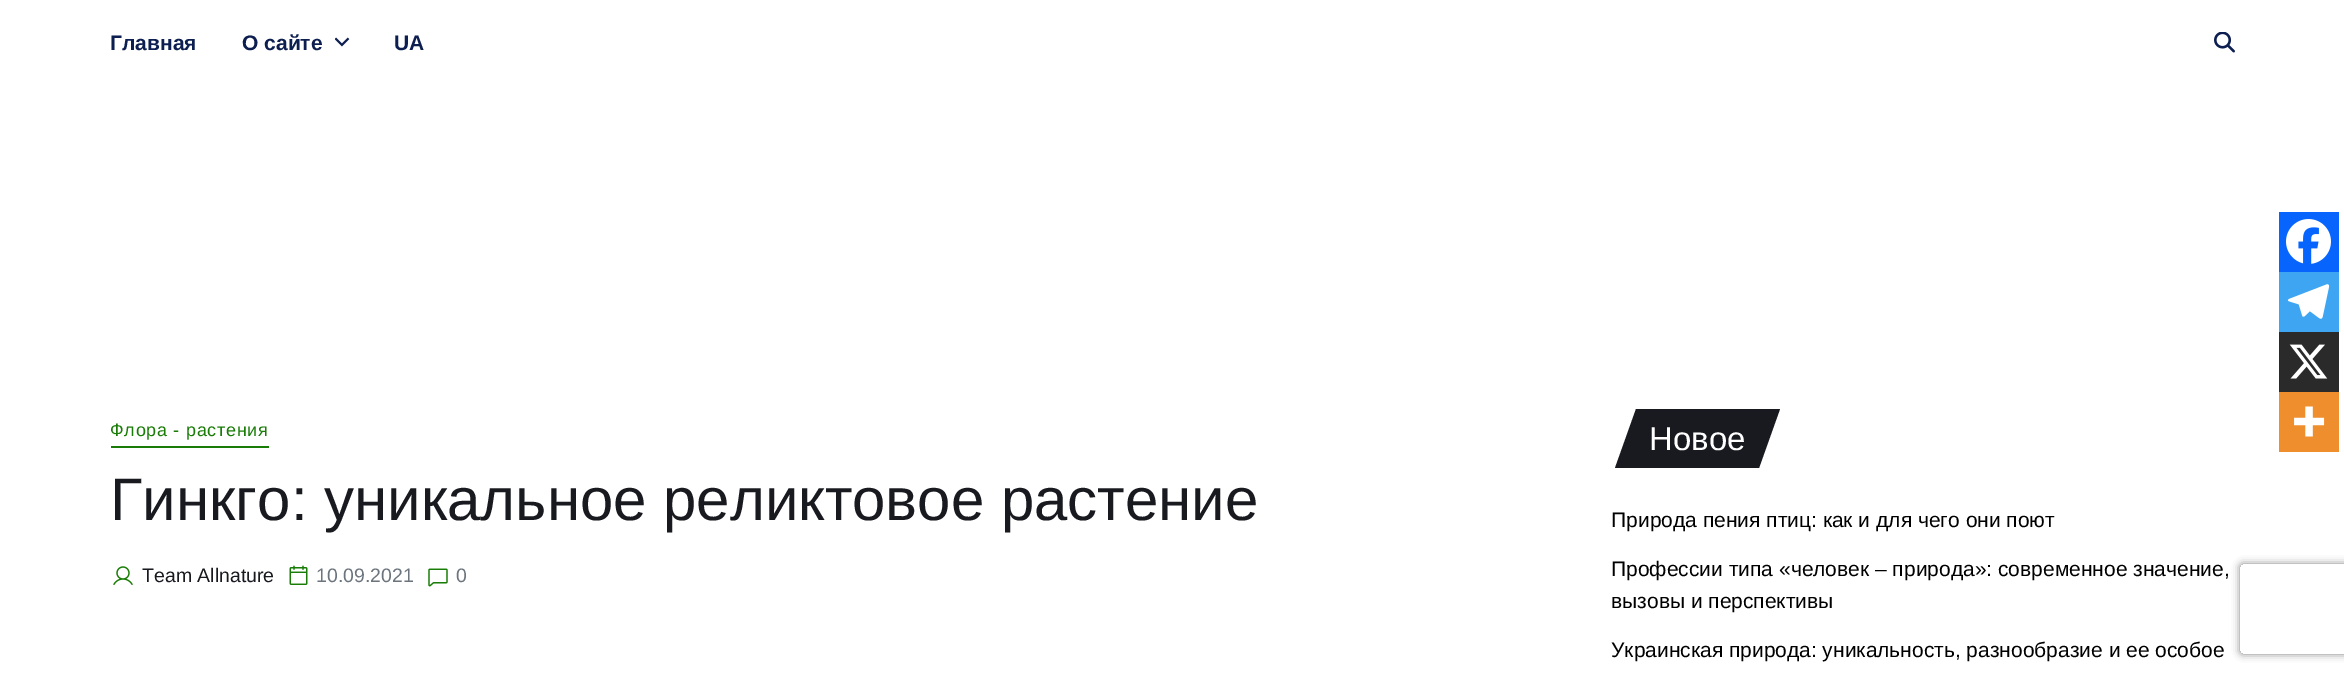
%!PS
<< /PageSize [2344 675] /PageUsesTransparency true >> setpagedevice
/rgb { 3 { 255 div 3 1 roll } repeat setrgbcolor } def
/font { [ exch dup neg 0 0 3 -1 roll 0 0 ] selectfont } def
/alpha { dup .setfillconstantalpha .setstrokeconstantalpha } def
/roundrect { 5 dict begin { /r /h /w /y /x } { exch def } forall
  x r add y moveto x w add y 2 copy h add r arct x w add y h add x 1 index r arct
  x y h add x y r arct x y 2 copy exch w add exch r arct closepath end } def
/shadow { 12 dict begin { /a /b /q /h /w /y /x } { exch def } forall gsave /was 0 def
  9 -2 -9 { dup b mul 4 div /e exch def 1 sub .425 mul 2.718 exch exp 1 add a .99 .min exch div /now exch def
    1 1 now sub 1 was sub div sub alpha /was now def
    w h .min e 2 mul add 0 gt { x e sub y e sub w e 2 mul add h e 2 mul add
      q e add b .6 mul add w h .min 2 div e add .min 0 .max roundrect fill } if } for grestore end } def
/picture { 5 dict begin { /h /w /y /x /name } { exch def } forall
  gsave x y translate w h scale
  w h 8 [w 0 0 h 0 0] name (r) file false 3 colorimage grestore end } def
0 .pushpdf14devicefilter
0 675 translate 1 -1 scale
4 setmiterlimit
255 255 255 rgb
0 0 2344 675 rectfill
(img/1.rgb) 335 37 15 10 picture
(img/2.rgb) 2214 32 21 21 picture
7 101 254 rgb
2279 212 60 60 rectfill
(img/3.rgb) 2286 219 45 45 picture
61 165 241 rgb
2279 272 60 60 rectfill
(img/4.rgb) 2287 284 43 35 picture
42 42 42 rgb
2279 332 60 60 rectfill
(img/5.rgb) 2289 344 39 35 picture
238 142 45 rgb
2279 392 60 60 rectfill
(img/6.rgb) 2294 406 31 31 picture
25 124 7 rgb
111 446 158 2 rectfill
(img/7.rgb) 113 566 20 19 picture
(img/8.rgb) 289 565 19 20 picture
(img/9.rgb) 428 568 20 19 picture
25 26 31 rgb
1636 409 moveto 1780 409 lineto 1759 468 lineto 1615 468 lineto closepath fill
gsave
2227 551 moveto 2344 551 lineto 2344 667 lineto 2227 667 lineto closepath 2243 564 moveto 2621 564 lineto 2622.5 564 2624 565.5 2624 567 curveto 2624 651 lineto 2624 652.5 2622.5 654 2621 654 curveto 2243 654 lineto 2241.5 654 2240 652.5 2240 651 curveto 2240 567 lineto 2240 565.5 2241.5 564 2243 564 curveto closepath eoclip newpath
128 128 128 rgb
2240 564 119 90 3 4 1 shadow
grestore
/LiberationSans-Bold 21 font
13 30 80 rgb
[
  [(Главная) 110 50]
  [(О сайте) 242 50]
  [(UA) 394 50]
] { aload pop moveto show } forall
/LiberationSans-Regular 18 font
25 124 7 rgb
110 436 moveto 0.7 0 (Флора - растения) ashow
/LiberationSans-Regular 60 font
25 26 31 rgb
110 520 moveto (Гинкго: уникальное реликтовое растение) show
/LiberationSans-Regular 19.5 font
142 582 moveto (Team Allnature) show
108 117 125 rgb
316 582 moveto (10.09.2021) show
456 582 moveto (0) show
/LiberationSans-Regular 33 font
255 255 255 rgb
1649 450 moveto (Новое) show
/LiberationSans-Regular 21 font
0 0 0 rgb
[
  [(Природа пения птиц: как и для чего они поют) 1611 527]
  [(Профессии типа «человек – природа»: современное значение,) 1611 576]
  [(вызовы и перспективы) 1611 608]
  [(Украинская природа: уникальность, разнообразие и ее особое) 1611 657]
] { aload pop moveto show } forall
.poppdf14devicefilter showpage
